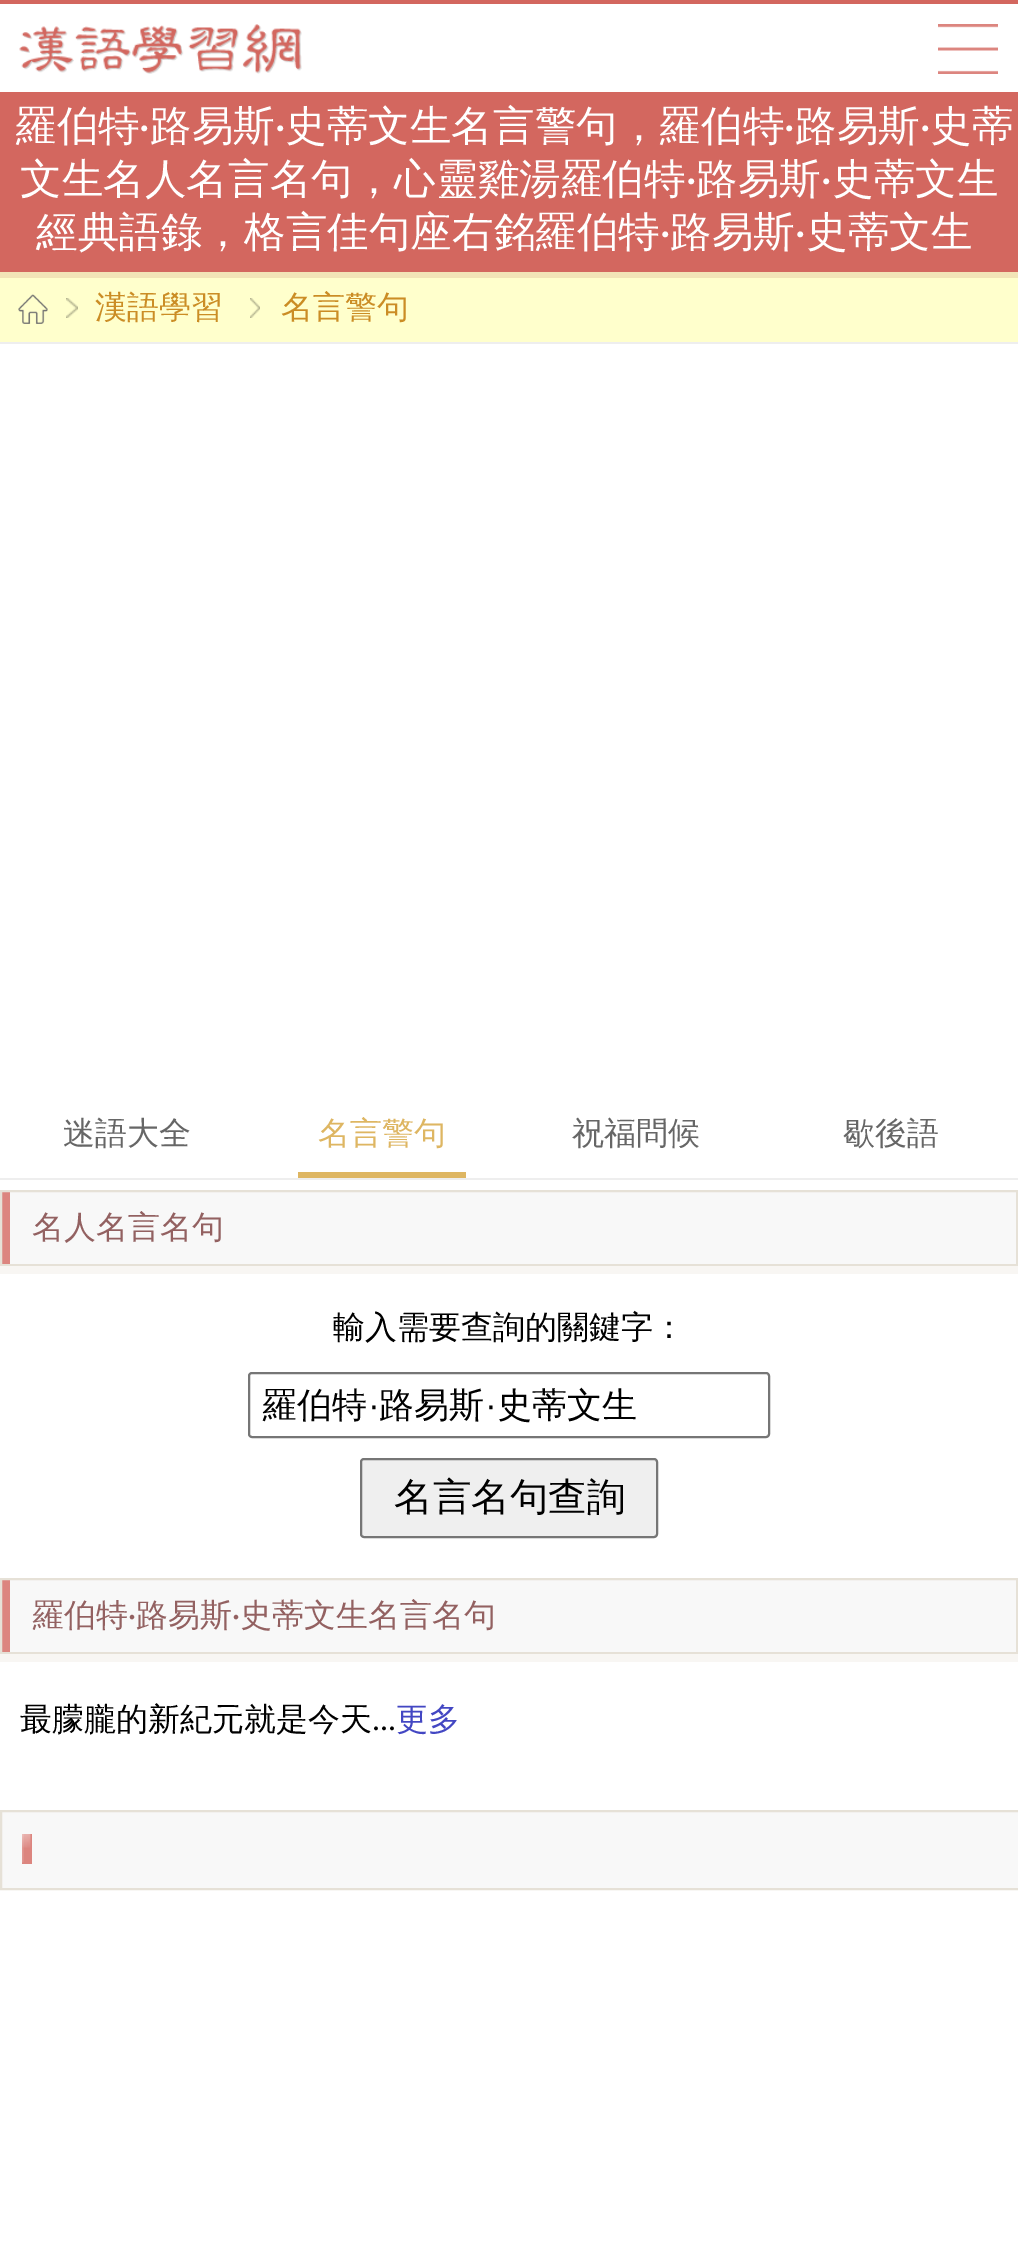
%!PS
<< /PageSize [1018 2253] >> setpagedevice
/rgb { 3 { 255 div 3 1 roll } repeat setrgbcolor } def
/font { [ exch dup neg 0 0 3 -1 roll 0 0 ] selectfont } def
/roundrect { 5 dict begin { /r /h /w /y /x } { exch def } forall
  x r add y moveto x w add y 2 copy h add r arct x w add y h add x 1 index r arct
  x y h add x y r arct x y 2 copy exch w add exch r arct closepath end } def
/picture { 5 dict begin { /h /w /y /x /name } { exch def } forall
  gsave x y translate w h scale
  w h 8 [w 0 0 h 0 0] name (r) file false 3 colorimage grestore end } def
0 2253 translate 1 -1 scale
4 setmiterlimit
255 255 255 rgb
0 0 1018 2253 rectfill
211 103 95 rgb
0 92 1018 180 rectfill
0 0 1018 4 rectfill
(img/1.rgb) 19 24 283 50 picture
(img/2.rgb) 938 24 60 50 picture
242 228 183 rgb
0 272 1018 6 rectfill
255 255 204 rgb
0 278 1018 64 rectfill
(img/3.rgb) 18 294 30 30 picture
238 238 238 rgb
0 342 1018 2 rectfill
(img/4.rgb) 66 298 12 20 picture
(img/5.rgb) 250 298 10 20 picture
[
  [0 1178 1018 2 238 238 238]
  [298 1172 168 6 222 182 98]
  [10 1192 1006 72 248 248 248]
  [2 1190 8 76 220 133 127]
] { aload pop rgb rectfill } forall
230 225 215 rgb
2 setlinewidth
1 1191 1016 74 rectstroke
248 246 243 rgb
0 1266 1018 8 rectfill
118 118 118 rgb
249 1373 520 64 3 roundrect stroke
239 239 239 rgb
361 1459 296 78 3 roundrect gsave fill grestore
118 118 118 rgb
stroke
248 248 248 rgb
10 1580 1006 72 rectfill
220 133 127 rgb
2 1578 8 76 rectfill
230 225 215 rgb
1 1579 1016 74 rectstroke
248 246 243 rgb
0 1654 1018 8 rectfill
248 248 248 rgb
2 1812 1016 76 rectfill
(img/6.rgb) 22 1834 10 30 picture
230 225 215 rgb
1 1811 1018 78 rectstroke
/WenQuanYiZenHei-Medium 41.6 font
255 255 255 rgb
15 140 moveto (羅伯特) show
/Carlito-Regular 41.6 font
139 140 moveto (·) show
/WenQuanYiZenHei-Medium 41.6 font
150 140 moveto (路易斯) show
/Carlito-Regular 41.6 font
275 140 moveto (·) show
/WenQuanYiZenHei-Medium 41.6 font
285 140 moveto (史蒂文生名言警句，羅伯特) show
/Carlito-Regular 41.6 font
784 140 moveto (·) show
/WenQuanYiZenHei-Medium 41.6 font
795 140 moveto (路易斯) show
/Carlito-Regular 41.6 font
920 140 moveto (·) show
/WenQuanYiZenHei-Medium 41.6 font
930 140 moveto (史蒂) show
20 193 moveto (文生名人名言名句，心靈雞湯羅伯特) show
/Carlito-Regular 41.6 font
686 193 moveto (·) show
/WenQuanYiZenHei-Medium 41.6 font
696 193 moveto (路易斯) show
/Carlito-Regular 41.6 font
821 193 moveto (·) show
/WenQuanYiZenHei-Medium 41.6 font
832 193 moveto (史蒂文生) show
36 246 moveto (經典語錄，格言佳句座右銘羅伯特) show
/Carlito-Regular 41.6 font
660 246 moveto (·) show
/WenQuanYiZenHei-Medium 41.6 font
670 246 moveto (路易斯) show
/Carlito-Regular 41.6 font
795 246 moveto (·) show
/WenQuanYiZenHei-Medium 41.6 font
806 246 moveto (史蒂文生) show
/WenQuanYiZenHei-Medium 32 font
203 141 37 rgb
95 318 moveto (漢語學習) show
281 318 moveto (名言警句) show
102 102 102 rgb
63 1144 moveto (迷語大全) show
222 182 98 rgb
318 1144 moveto (名言警句) show
102 102 102 rgb
572 1144 moveto (祝福問候) show
843 1144 moveto (歇後語) show
147 97 97 rgb
32 1238 moveto (名人名言名句) show
0 0 0 rgb
333 1338 moveto (輸入需要查詢的關鍵字：) show
/WenQuanYiZenHei-Medium 35 font
262 1417 moveto (羅伯特) show
/LiberationSans-Regular 35 font
368 1417 moveto (·) show
/WenQuanYiZenHei-Medium 35 font
379 1417 moveto (路易斯) show
/LiberationSans-Regular 35 font
485 1417 moveto (·) show
/WenQuanYiZenHei-Medium 35 font
497 1417 moveto (史蒂文生) show
/WenQuanYiZenHei-Medium 38.5 font
394 1510 moveto (名言名句查詢) show
/WenQuanYiZenHei-Medium 32 font
147 97 97 rgb
32 1626 moveto (羅伯特) show
/Carlito-Regular 32 font
128 1626 moveto (·) show
/WenQuanYiZenHei-Medium 32 font
136 1626 moveto (路易斯) show
/Carlito-Regular 32 font
232 1626 moveto (·) show
/WenQuanYiZenHei-Medium 32 font
240 1626 moveto (史蒂文生名言名句) show
0 0 0 rgb
20 1730 moveto (最朦朧的新紀元就是今天) show
/Carlito-Regular 32 font
372 1730 moveto (...) show
/WenQuanYiZenHei-Medium 32 font
67 71 195 rgb
396 1730 moveto (更多) show
showpage
